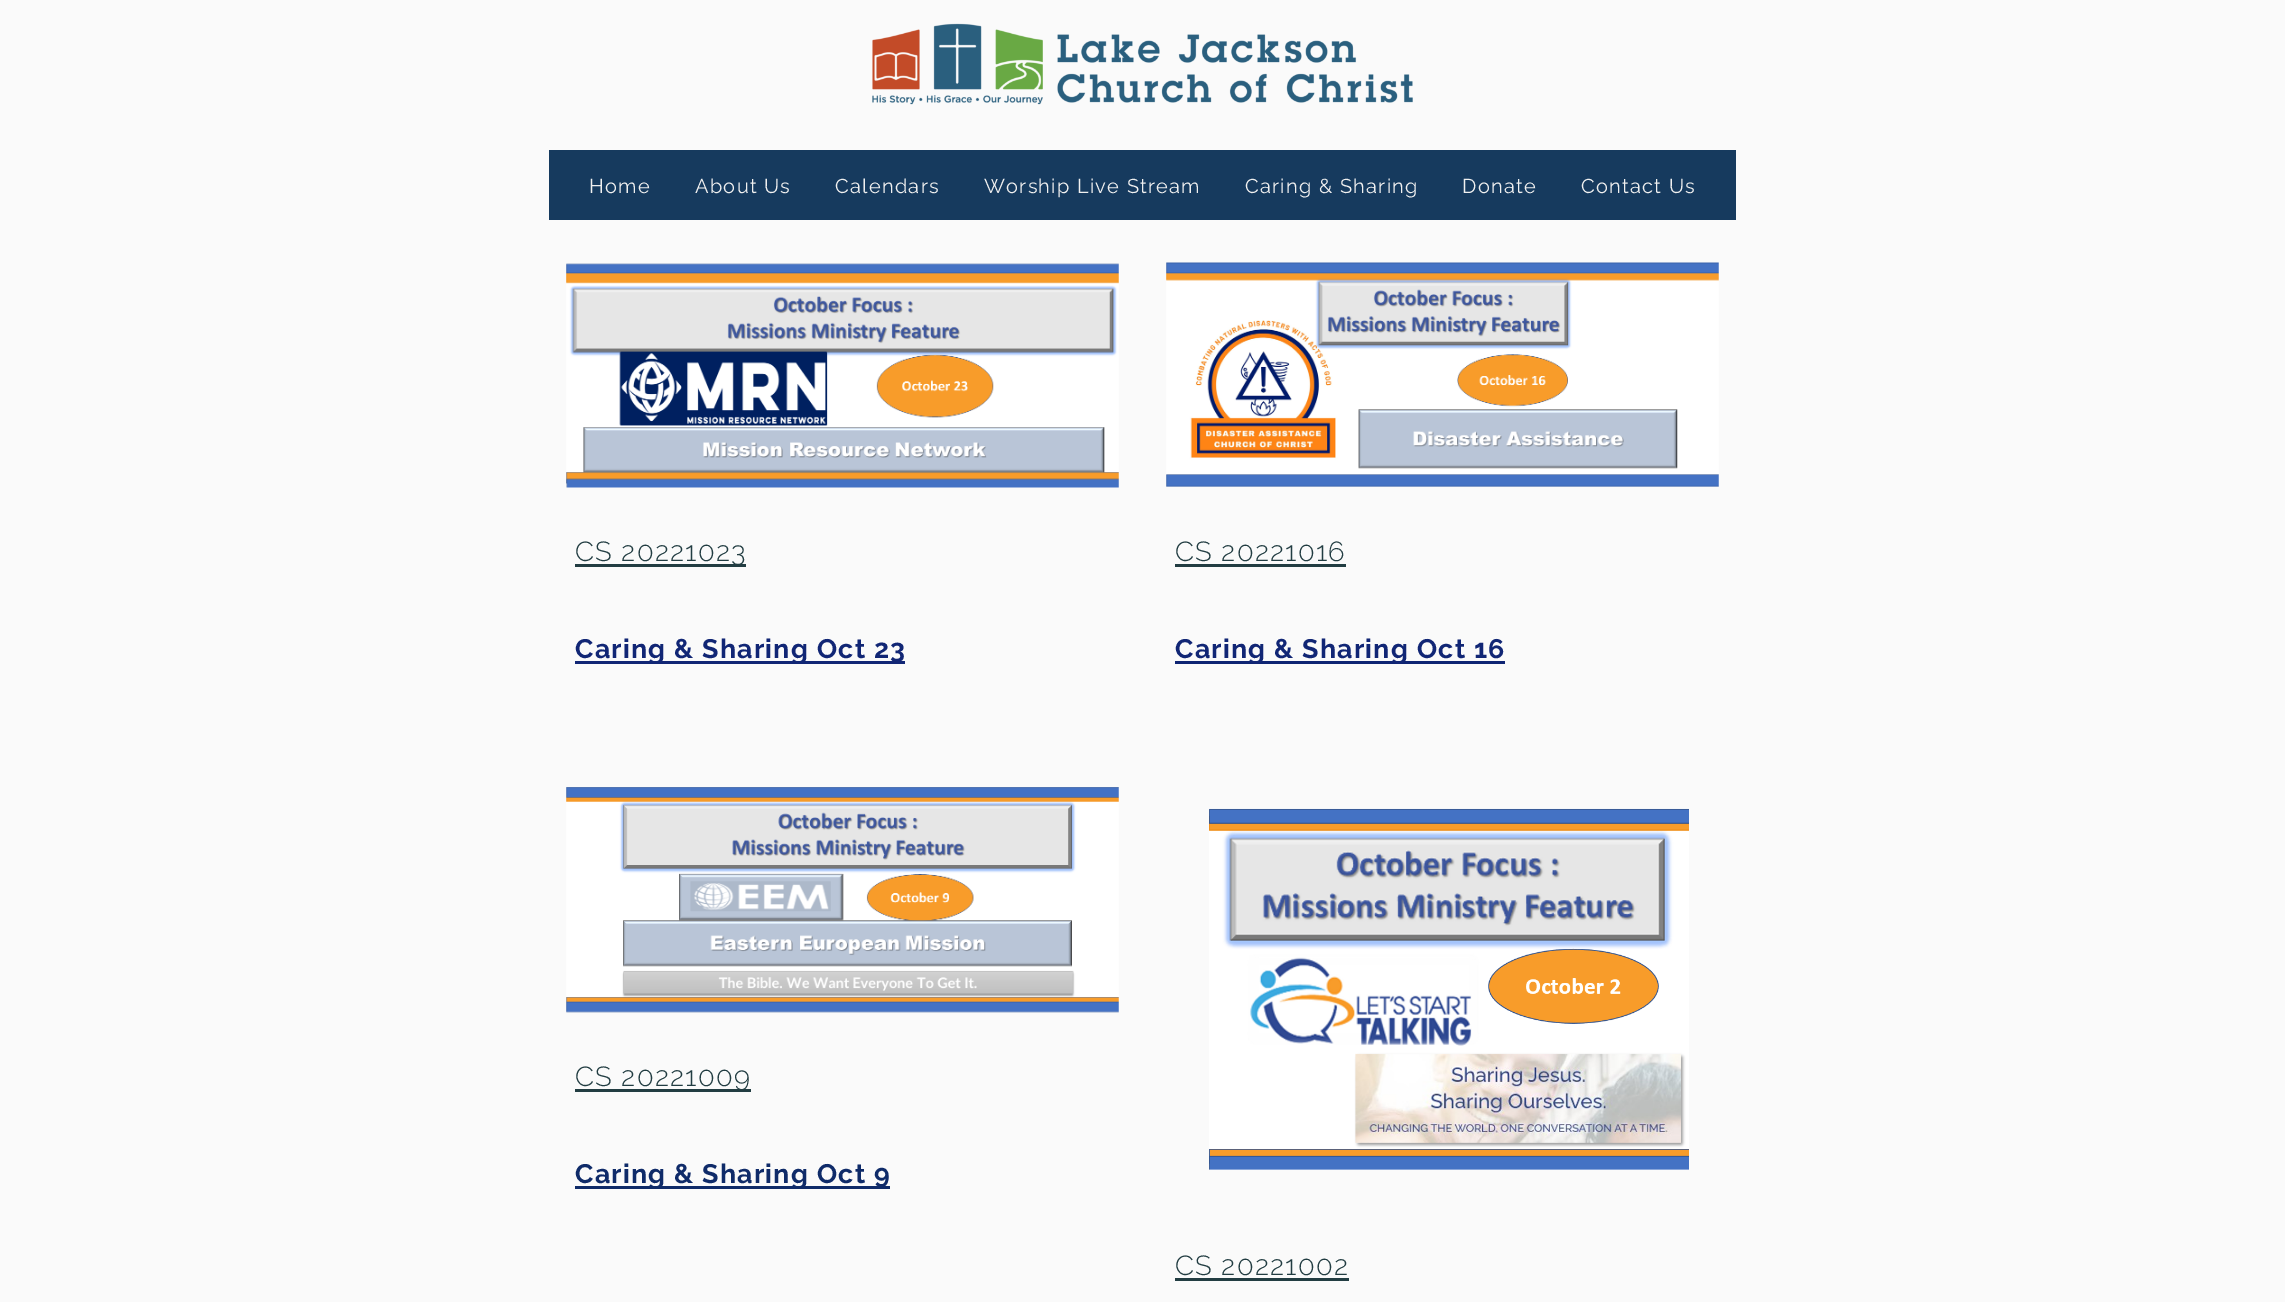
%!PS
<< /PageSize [2285 1302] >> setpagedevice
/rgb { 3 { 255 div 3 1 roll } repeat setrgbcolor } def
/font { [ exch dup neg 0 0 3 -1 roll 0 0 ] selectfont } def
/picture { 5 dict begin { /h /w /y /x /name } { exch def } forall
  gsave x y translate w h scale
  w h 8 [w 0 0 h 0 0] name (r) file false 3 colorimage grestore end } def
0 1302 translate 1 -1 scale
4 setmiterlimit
250 250 250 rgb
0 0 2285 1302 rectfill
(img/1.rgb) 872 23 541 82 picture
22 58 94 rgb
549 150 1187 70 rectfill
(img/2.rgb) 566 263 553 225 picture
34 61 66 rgb
575 564 171 3 rectfill
17 38 117 rgb
575 661 330 3 rectfill
(img/3.rgb) 1166 262 553 225 picture
34 61 66 rgb
1175 564 171 3 rectfill
14 36 115 rgb
1175 661 330 3 rectfill
(img/4.rgb) 566 787 553 226 picture
34 61 66 rgb
575 1089 176 3 rectfill
15 43 105 rgb
575 1186 315 3 rectfill
(img/5.rgb) 1209 808 480 362 picture
34 61 66 rgb
1175 1278 174 3 rectfill
/Raleway-Regular 20 font
240 240 240 rgb
589 193 moveto 1.25 0 (Home) ashow
695 193 moveto 1.25 0 (About Us) ashow
835 193 moveto 1.25 0 (Calendars) ashow
984 193 moveto 1.25 0 (Worship Live Stream) ashow
1245 193 moveto 1.25 0 (Caring & Sharing) ashow
1462 193 moveto 1.25 0 (Donate) ashow
1581 193 moveto 1.25 0 (Contact Us) ashow
/Raleway-Light 27.5 font
34 61 66 rgb
575 561 moveto 1.25 0 (CS 20221023) ashow
/Raleway-Bold 26.75 font
17 38 117 rgb
575 658 moveto 1.25 0 (Caring & Sharing Oct 23) ashow
/Raleway-Light 27.5 font
34 61 66 rgb
1175 561 moveto 1.25 0 (CS 20221016) ashow
/Raleway-Bold 26.75 font
17 38 117 rgb
1175 658 moveto 1.25 0 (Caring & Sharing Oct 16) ashow
/Raleway-Light 27.5 font
34 61 66 rgb
575 1086 moveto 1.25 0 (CS 20221009) ashow
/Raleway-Bold 26.75 font
15 43 105 rgb
575 1183 moveto 1.25 0 (Caring & Sharing Oct 9) ashow
/Raleway-Light 27.5 font
34 61 66 rgb
1175 1275 moveto 1.25 0 (CS 20221002) ashow
showpage
